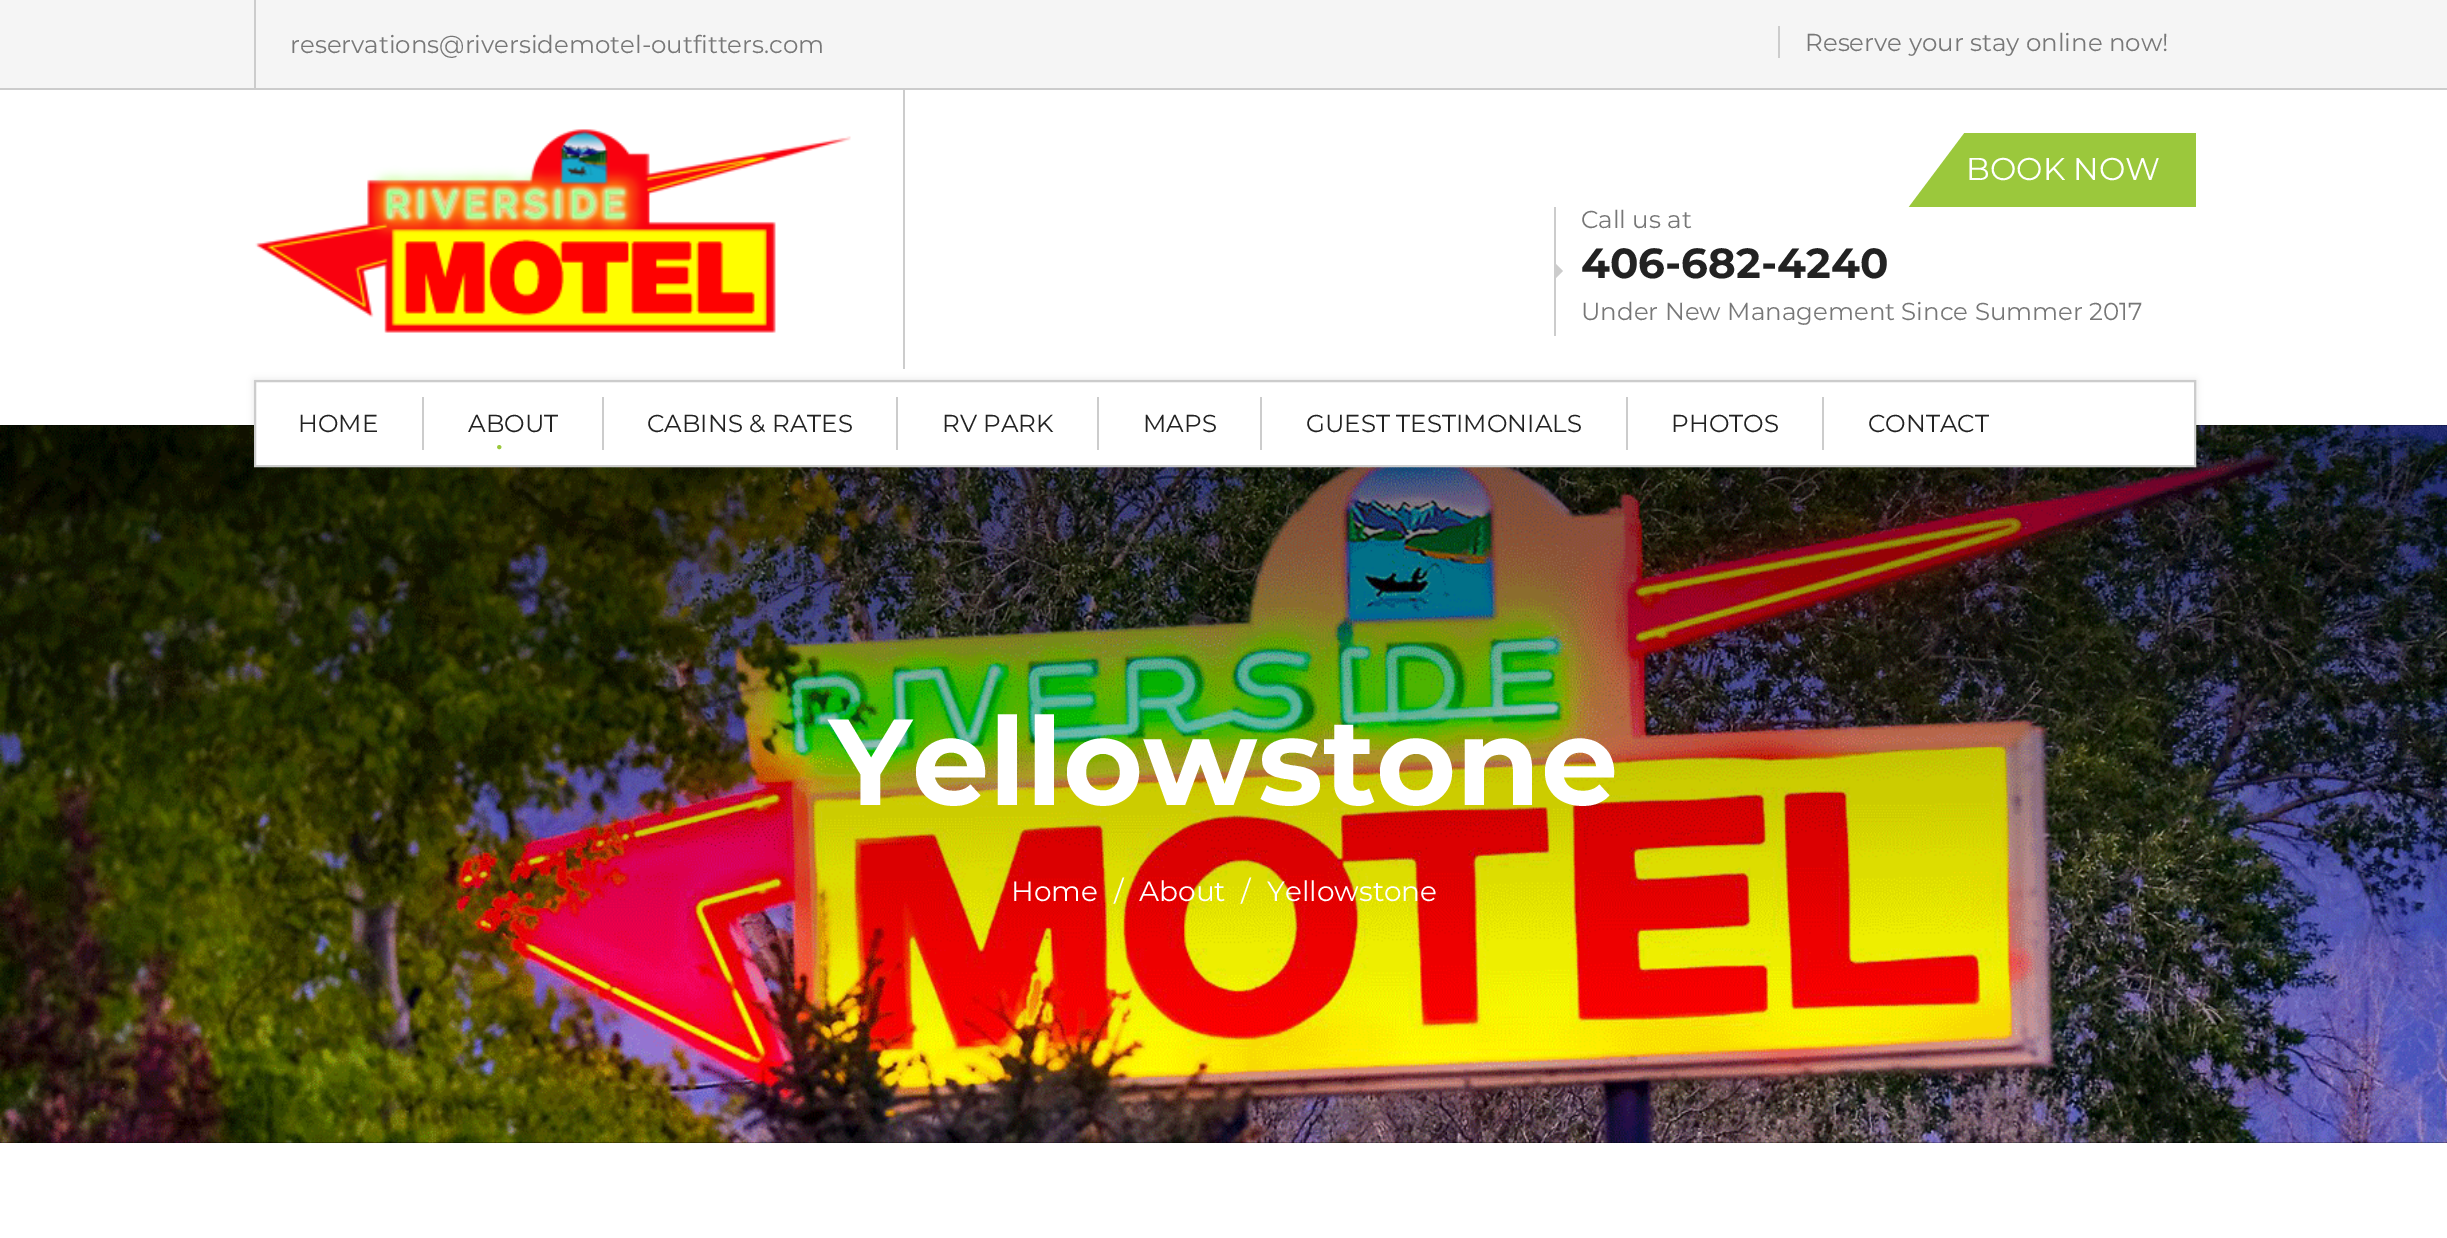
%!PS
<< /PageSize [2447 1238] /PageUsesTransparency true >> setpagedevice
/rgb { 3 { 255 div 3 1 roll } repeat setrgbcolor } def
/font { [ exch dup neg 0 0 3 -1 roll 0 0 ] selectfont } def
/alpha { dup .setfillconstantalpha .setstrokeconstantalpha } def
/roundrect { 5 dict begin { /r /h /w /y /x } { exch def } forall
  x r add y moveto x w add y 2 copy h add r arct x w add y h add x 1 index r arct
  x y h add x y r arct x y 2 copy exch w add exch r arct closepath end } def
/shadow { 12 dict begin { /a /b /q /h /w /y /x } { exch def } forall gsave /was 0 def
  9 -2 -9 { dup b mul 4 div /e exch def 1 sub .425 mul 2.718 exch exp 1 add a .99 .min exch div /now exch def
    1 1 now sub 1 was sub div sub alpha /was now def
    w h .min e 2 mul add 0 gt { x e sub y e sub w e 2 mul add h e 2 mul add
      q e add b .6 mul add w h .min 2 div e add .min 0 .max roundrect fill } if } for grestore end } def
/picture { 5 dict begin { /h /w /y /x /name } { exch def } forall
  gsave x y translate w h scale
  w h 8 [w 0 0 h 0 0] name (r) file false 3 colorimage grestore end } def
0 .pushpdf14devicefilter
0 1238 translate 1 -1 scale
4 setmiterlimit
255 255 255 rgb
0 0 2447 1238 rectfill
[
  [0 0 2447 88 245 245 245]
  [0 88 2447 2 204 204 204]
  [254 0 2 88 204 204 204]
  [1778 26 2 32 204 204 204]
  [903 89 2 280 204 204 204]
] { aload pop rgb rectfill } forall
(img/1.rgb) 255 129 596 204 picture
155 200 60 rgb
1908 133 288 74 rectfill
255 255 255 rgb
1922 102 moveto 1964 133 lineto 1901 217 lineto 1859 185 lineto closepath fill
204 204 204 rgb
1554 207 2 129 rectfill
1556 278 moveto 1556 264 lineto 1563 271 lineto closepath fill
(img/2.rgb) 0 425 2447 718 picture
0 0 0 rgb
254 380 1942 87 0 3.5 0.1 shadow
255 255 255 rgb
255 381 moveto 2195 381 lineto 2195 466 lineto 255 466 lineto closepath gsave fill grestore
204 204 204 rgb
2 setlinewidth
stroke
[
  [422 397 2 53 204 204 204]
  [602 397 2 53 204 204 204]
  [896 397 2 53 204 204 204]
  [1097 397 2 53 204 204 204]
  [1260 397 2 53 204 204 204]
  [1626 397 2 53 204 204 204]
  [1822 397 2 53 204 204 204]
] { aload pop rgb rectfill } forall
/Montserrat-Regular 24.5 font
119 119 119 rgb
290 53 moveto (reservations@riversidemotel-outfitters.com) show
1805 51 moveto (Reserve your stay online now!) show
/Montserrat-Regular 31.5 font
255 255 255 rgb
1966 180 moveto (BOOK NOW) show
/Montserrat-Regular 24.5 font
119 119 119 rgb
1581 228 moveto (Call us at) show
/Montserrat-Bold 42 font
34 34 34 rgb
1581 278 moveto (406-682-4240) show
/Montserrat-Regular 24.5 font
119 119 119 rgb
1581 320 moveto (Under New Management Since Summer 2017) show
34 34 34 rgb
298 432 moveto (HOME) show
468 432 moveto (ABOUT) show
/Montserrat-Regular 29 font
155 200 60 rgb
495 455 moveto (•) show
/Montserrat-Regular 24.5 font
34 34 34 rgb
[
  [(CABINS & RATES) 647 432]
  [(RV PARK) 942 432]
  [(MAPS) 1143 432]
  [(GUEST TESTIMONIALS) 1306 432]
  [(PHOTOS) 1671 432]
  [(CONTACT) 1868 432]
] { aload pop moveto show } forall
/Montserrat-Bold 122.5 font
255 255 255 rgb
829 805 moveto (Yellowstone) show
/Montserrat-Regular 28 font
[
  [(Home) 1011 901]
  [(/) 1114 901]
  [(About) 1139 901]
  [(/) 1241 901]
  [(Yellowstone) 1267 901]
] { aload pop moveto show } forall
.poppdf14devicefilter showpage
